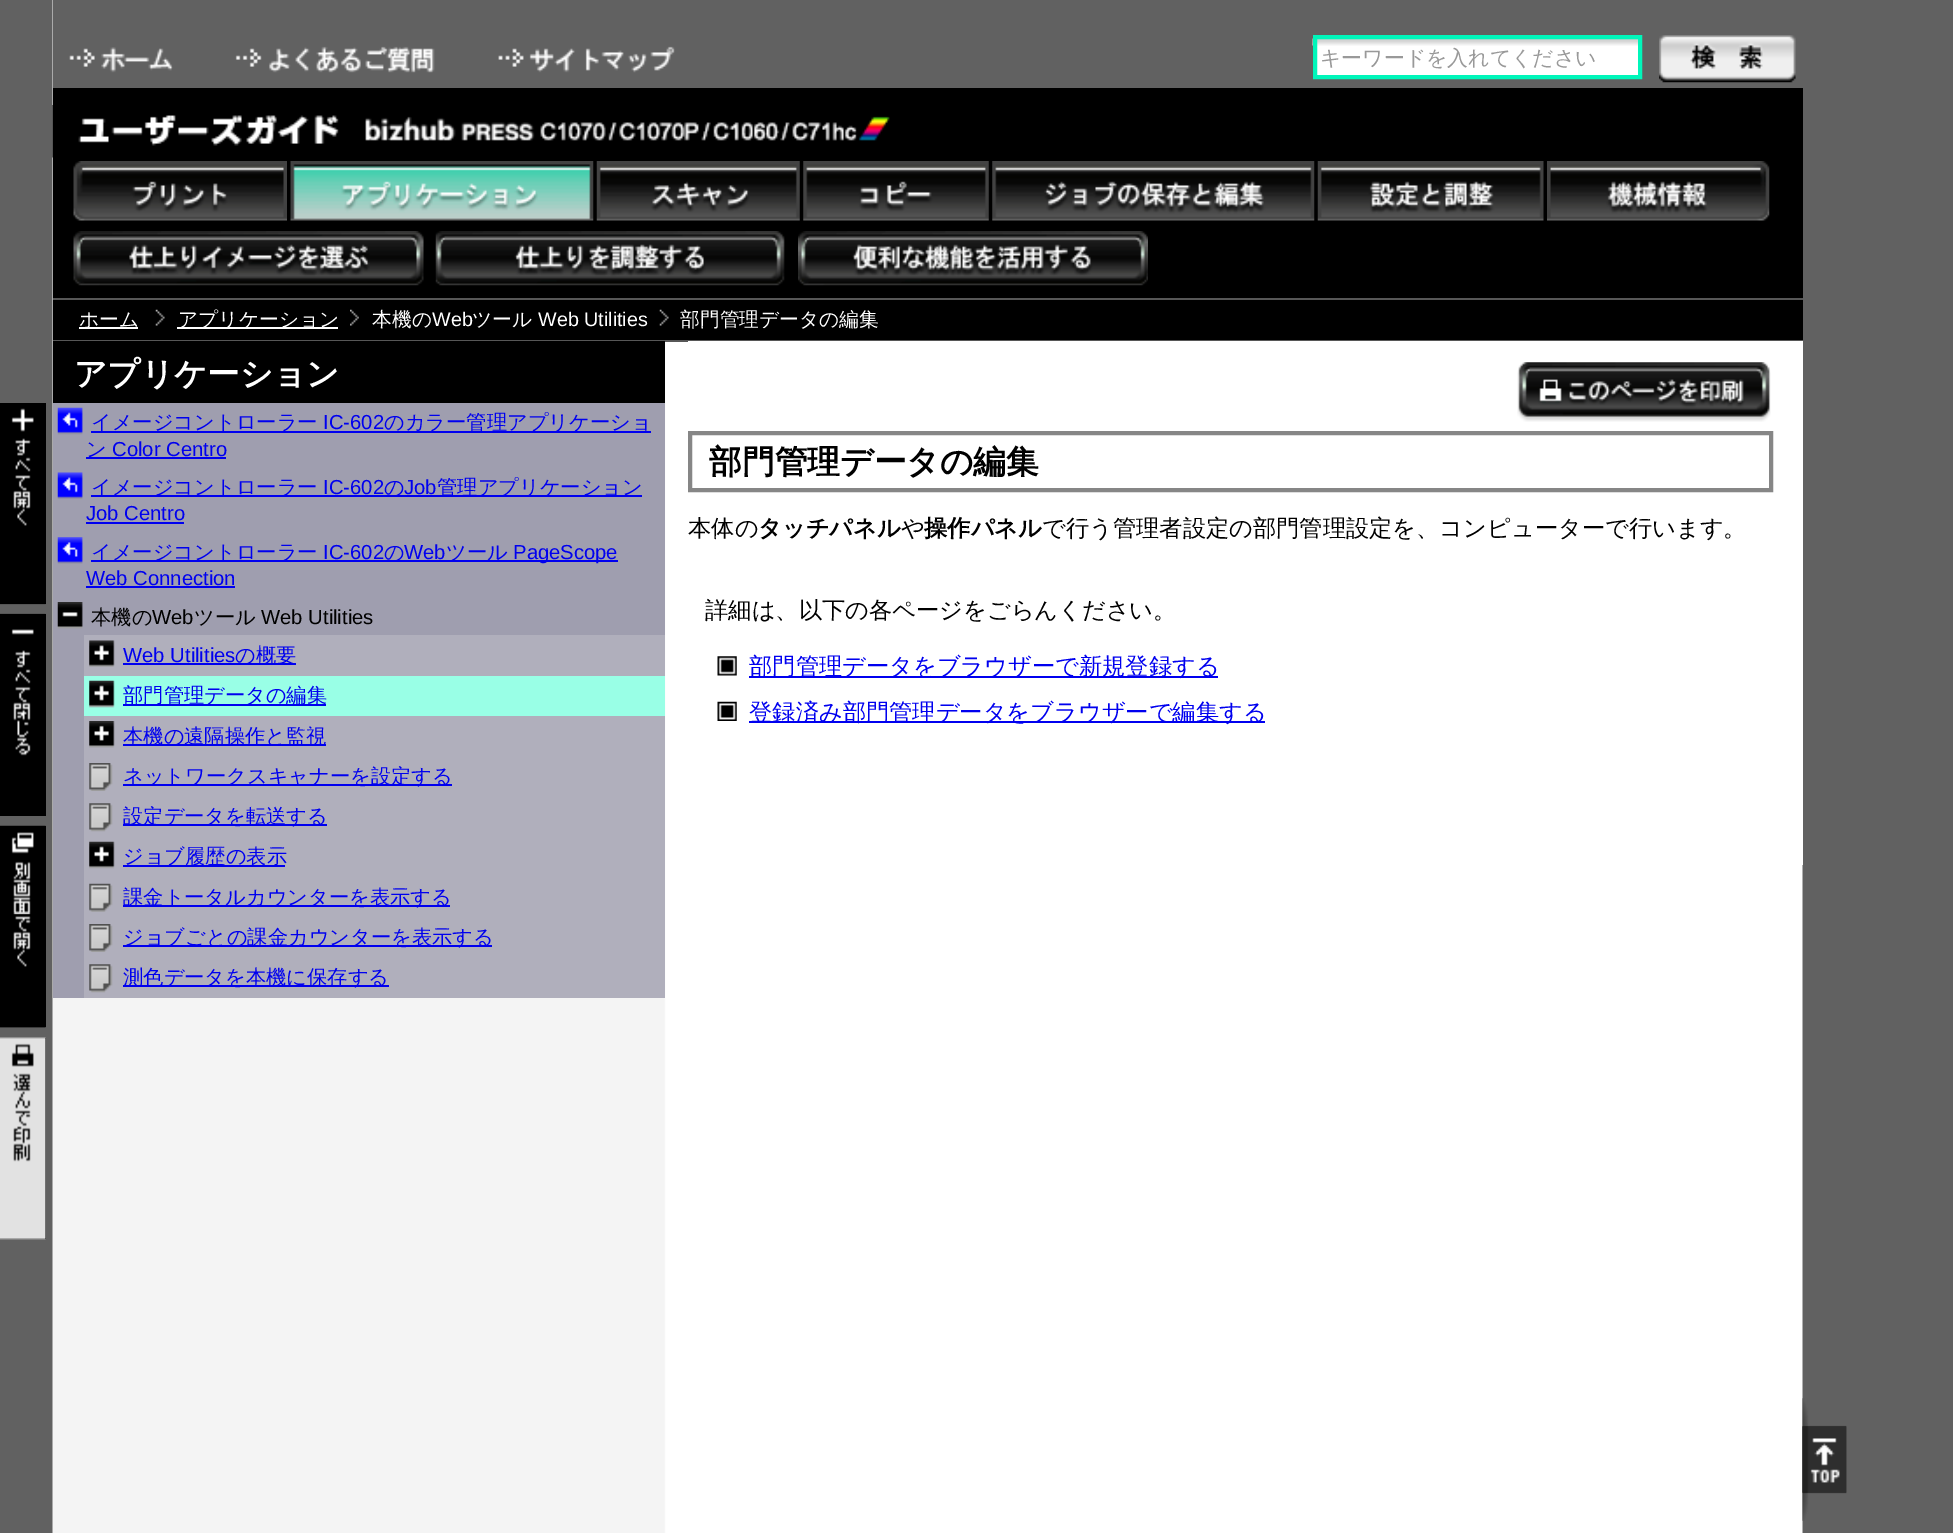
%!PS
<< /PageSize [1953 1533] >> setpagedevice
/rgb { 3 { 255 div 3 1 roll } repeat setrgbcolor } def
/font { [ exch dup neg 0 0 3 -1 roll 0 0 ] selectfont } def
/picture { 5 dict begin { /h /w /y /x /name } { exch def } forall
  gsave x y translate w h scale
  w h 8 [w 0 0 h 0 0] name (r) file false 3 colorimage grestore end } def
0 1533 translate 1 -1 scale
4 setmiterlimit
97 97 97 rgb
0 0 1953 1533 rectfill
(img/1.rgb) 52 0 1751 1533 picture
53 0 1750 88 rectfill
(img/2.rgb) 69 47 104 26 picture
(img/3.rgb) 235 46 200 27 picture
(img/4.rgb) 498 46 177 27 picture
255 255 255 rgb
1317 45 321 30 rectfill
(img/5.rgb) 1312 38 326 8 picture
0 246 186 rgb
4 setlinewidth
1315 37 325 40 rectstroke
(img/6.rgb) 1659 35 137 48 picture
0 0 0 rgb
53 88 1750 210 rectfill
(img/7.rgb) 52 105 838 53 picture
(img/8.rgb) 73 161 214 60 picture
(img/9.rgb) 290 161 304 60 picture
(img/10.rgb) 596 161 204 60 picture
(img/11.rgb) 803 161 186 60 picture
(img/12.rgb) 992 161 323 60 picture
(img/13.rgb) 1317 161 227 60 picture
(img/14.rgb) 1547 161 223 60 picture
(img/15.rgb) 73 231 351 55 picture
(img/16.rgb) 435 231 350 55 picture
(img/17.rgb) 798 231 350 55 picture
[
  [53 300 1750 40 0 0 0]
  [53 298 1750 2 87 87 87]
  [53 340 1750 2 87 87 87]
  [79 327 59 2 255 255 255]
] { aload pop rgb rectfill } forall
(img/18.rgb) 155 309 10 17 picture
177 327 161 2 rectfill
(img/19.rgb) 350 309 9 17 picture
(img/20.rgb) 659 309 10 17 picture
0 0 0 rgb
53 341 612 62 rectfill
0 403 46 201 rectfill
(img/21.rgb) 0 408 46 197 picture
0 614 46 202 rectfill
(img/22.rgb) 0 613 46 143 picture
0 826 46 201 rectfill
(img/23.rgb) 0 825 46 203 picture
0 1038 46 201 rectfill
(img/24.rgb) 0 1037 46 203 picture
159 158 175 rgb
53 403 612 595 rectfill
(img/25.rgb) 57 407 26 28 picture
0 0 239 rgb
91 431 560 2 rectfill
86 457 140 2 rectfill
(img/26.rgb) 57 472 26 27 picture
91 495 551 2 rectfill
86 522 98 2 rectfill
(img/27.rgb) 57 537 26 27 picture
91 560 527 2 rectfill
86 586 149 2 rectfill
(img/28.rgb) 57 602 26 27 picture
176 175 188 rgb
84 635 581 41 rectfill
(img/29.rgb) 89 640 26 27 picture
0 0 239 rgb
123 663 173 2 rectfill
153 255 230 rgb
84 676 581 40 rectfill
(img/30.rgb) 89 680 26 28 picture
0 0 239 rgb
123 704 203 2 rectfill
176 175 188 rgb
84 716 581 282 rectfill
(img/31.rgb) 89 721 26 27 picture
0 0 239 rgb
123 744 203 2 rectfill
(img/32.rgb) 89 763 24 28 picture
123 784 329 2 rectfill
(img/33.rgb) 89 803 24 29 picture
123 824 204 2 rectfill
(img/34.rgb) 89 841 26 28 picture
123 865 162 2 rectfill
(img/35.rgb) 89 883 24 29 picture
123 905 327 2 rectfill
(img/32.rgb) 89 924 24 28 picture
123 945 369 2 rectfill
(img/33.rgb) 89 964 24 29 picture
123 985 266 2 rectfill
255 255 255 rgb
688 341 1115 524 rectfill
(img/36.rgb) 1517 362 254 60 picture
134 134 134 rgb
690 433 1081 57 rectstroke
(img/37.rgb) 717 656 20 20 picture
0 0 239 rgb
749 676 469 2 rectfill
(img/38.rgb) 717 701 20 20 picture
749 721 516 2 rectfill
(img/39.rgb) 1802 1398 45 123 picture
(img/40.rgb) 1802 1426 45 67 picture
/WenQuanYiZenHei-Medium 20.9 font
153 153 153 rgb
1320 65 moveto (キーワードを入れてください) show
/WenQuanYiZenHei-Medium 19.75 font
255 255 255 rgb
[
  [(ホーム) 79 326]
  [(アプリケーション) 178 326]
  [(本機の) 372 326]
] { aload pop moveto show } forall
/LiberationSans-Regular 19.75 font
432 326 moveto (Web) show
/WenQuanYiZenHei-Medium 19.75 font
472 326 moveto (ツール) show
/LiberationSans-Regular 19.75 font
538 326 moveto (Web Utilities) show
/WenQuanYiZenHei-Medium 19.75 font
680 326 moveto (部門管理データの編集) show
/WenQuanYiZenHei-Bold 32.5 font
74 385 moveto (アプリケーション) show
/WenQuanYiZenHei-Medium 20.25 font
0 0 239 rgb
91 429 moveto (イメージコントローラー) show
/LiberationSans-Regular 20.25 font
323 429 moveto (IC-602) show
/WenQuanYiZenHei-Medium 20.25 font
384 429 moveto (のカラー管理アプリケーショ) show
86 456 moveto (ン) show
/LiberationSans-Regular 20.25 font
112 456 moveto (Color Centro) show
/WenQuanYiZenHei-Medium 20.25 font
91 494 moveto (イメージコントローラー) show
/LiberationSans-Regular 20.25 font
323 494 moveto (IC-602) show
/WenQuanYiZenHei-Medium 20.25 font
384 494 moveto (の) show
/LiberationSans-Regular 20.25 font
404 494 moveto (Job) show
/WenQuanYiZenHei-Medium 20.25 font
437 494 moveto (管理アプリケーション) show
/LiberationSans-Regular 20.25 font
86 520 moveto (Job Centro) show
/WenQuanYiZenHei-Medium 20.25 font
91 559 moveto (イメージコントローラー) show
/LiberationSans-Regular 20.25 font
323 559 moveto (IC-602) show
/WenQuanYiZenHei-Medium 20.25 font
384 559 moveto (の) show
/LiberationSans-Regular 20.25 font
404 559 moveto (Web) show
/WenQuanYiZenHei-Medium 20.25 font
446 559 moveto (ツール) show
/LiberationSans-Regular 20.25 font
513 559 moveto (PageScope) show
86 585 moveto (Web Connection) show
/WenQuanYiZenHei-Medium 20.25 font
0 0 0 rgb
91 624 moveto (本機の) show
/LiberationSans-Regular 20.25 font
152 624 moveto (Web) show
/WenQuanYiZenHei-Medium 20.25 font
194 624 moveto (ツール) show
/LiberationSans-Regular 20.25 font
261 624 moveto (Web Utilities) show
0 0 239 rgb
123 662 moveto (Web Utilities) show
/WenQuanYiZenHei-Medium 20.25 font
[
  [(の概要) 235 662]
  [(部門管理データの編集) 123 702]
  [(本機の遠隔操作と監視) 123 743]
  [(ネットワークスキャナーを設定する) 123 783]
  [(設定データを転送する) 123 823]
  [(ジョブ履歴の表示) 123 863]
  [(課金トータルカウンターを表示する) 123 904]
  [(ジョブごとの課金カウンターを表示する) 123 944]
  [(測色データを本機に保存する) 123 984]
] { aload pop moveto show } forall
/WenQuanYiZenHei-Bold 32.75 font
0 0 0 rgb
709 473 moveto (部門管理データの編集) show
/WenQuanYiZenHei-Medium 23.25 font
688 536 moveto (本体の) show
/WenQuanYiZenHei-Bold 23.25 font
758 536 moveto (タッチパネル) show
/WenQuanYiZenHei-Medium 23.25 font
901 536 moveto (や) show
/WenQuanYiZenHei-Bold 23.25 font
924 536 moveto (操作パネル) show
/WenQuanYiZenHei-Medium 23.25 font
1042 536 moveto (で行う管理者設定の部門管理設定を、コンピューターで行います。) show
705 618 moveto (詳細は、以下の各ページをごらんください。) show
0 0 239 rgb
749 674 moveto (部門管理データをブラウザーで新規登録する) show
749 720 moveto (登録済み部門管理データをブラウザーで編集する) show
showpage
